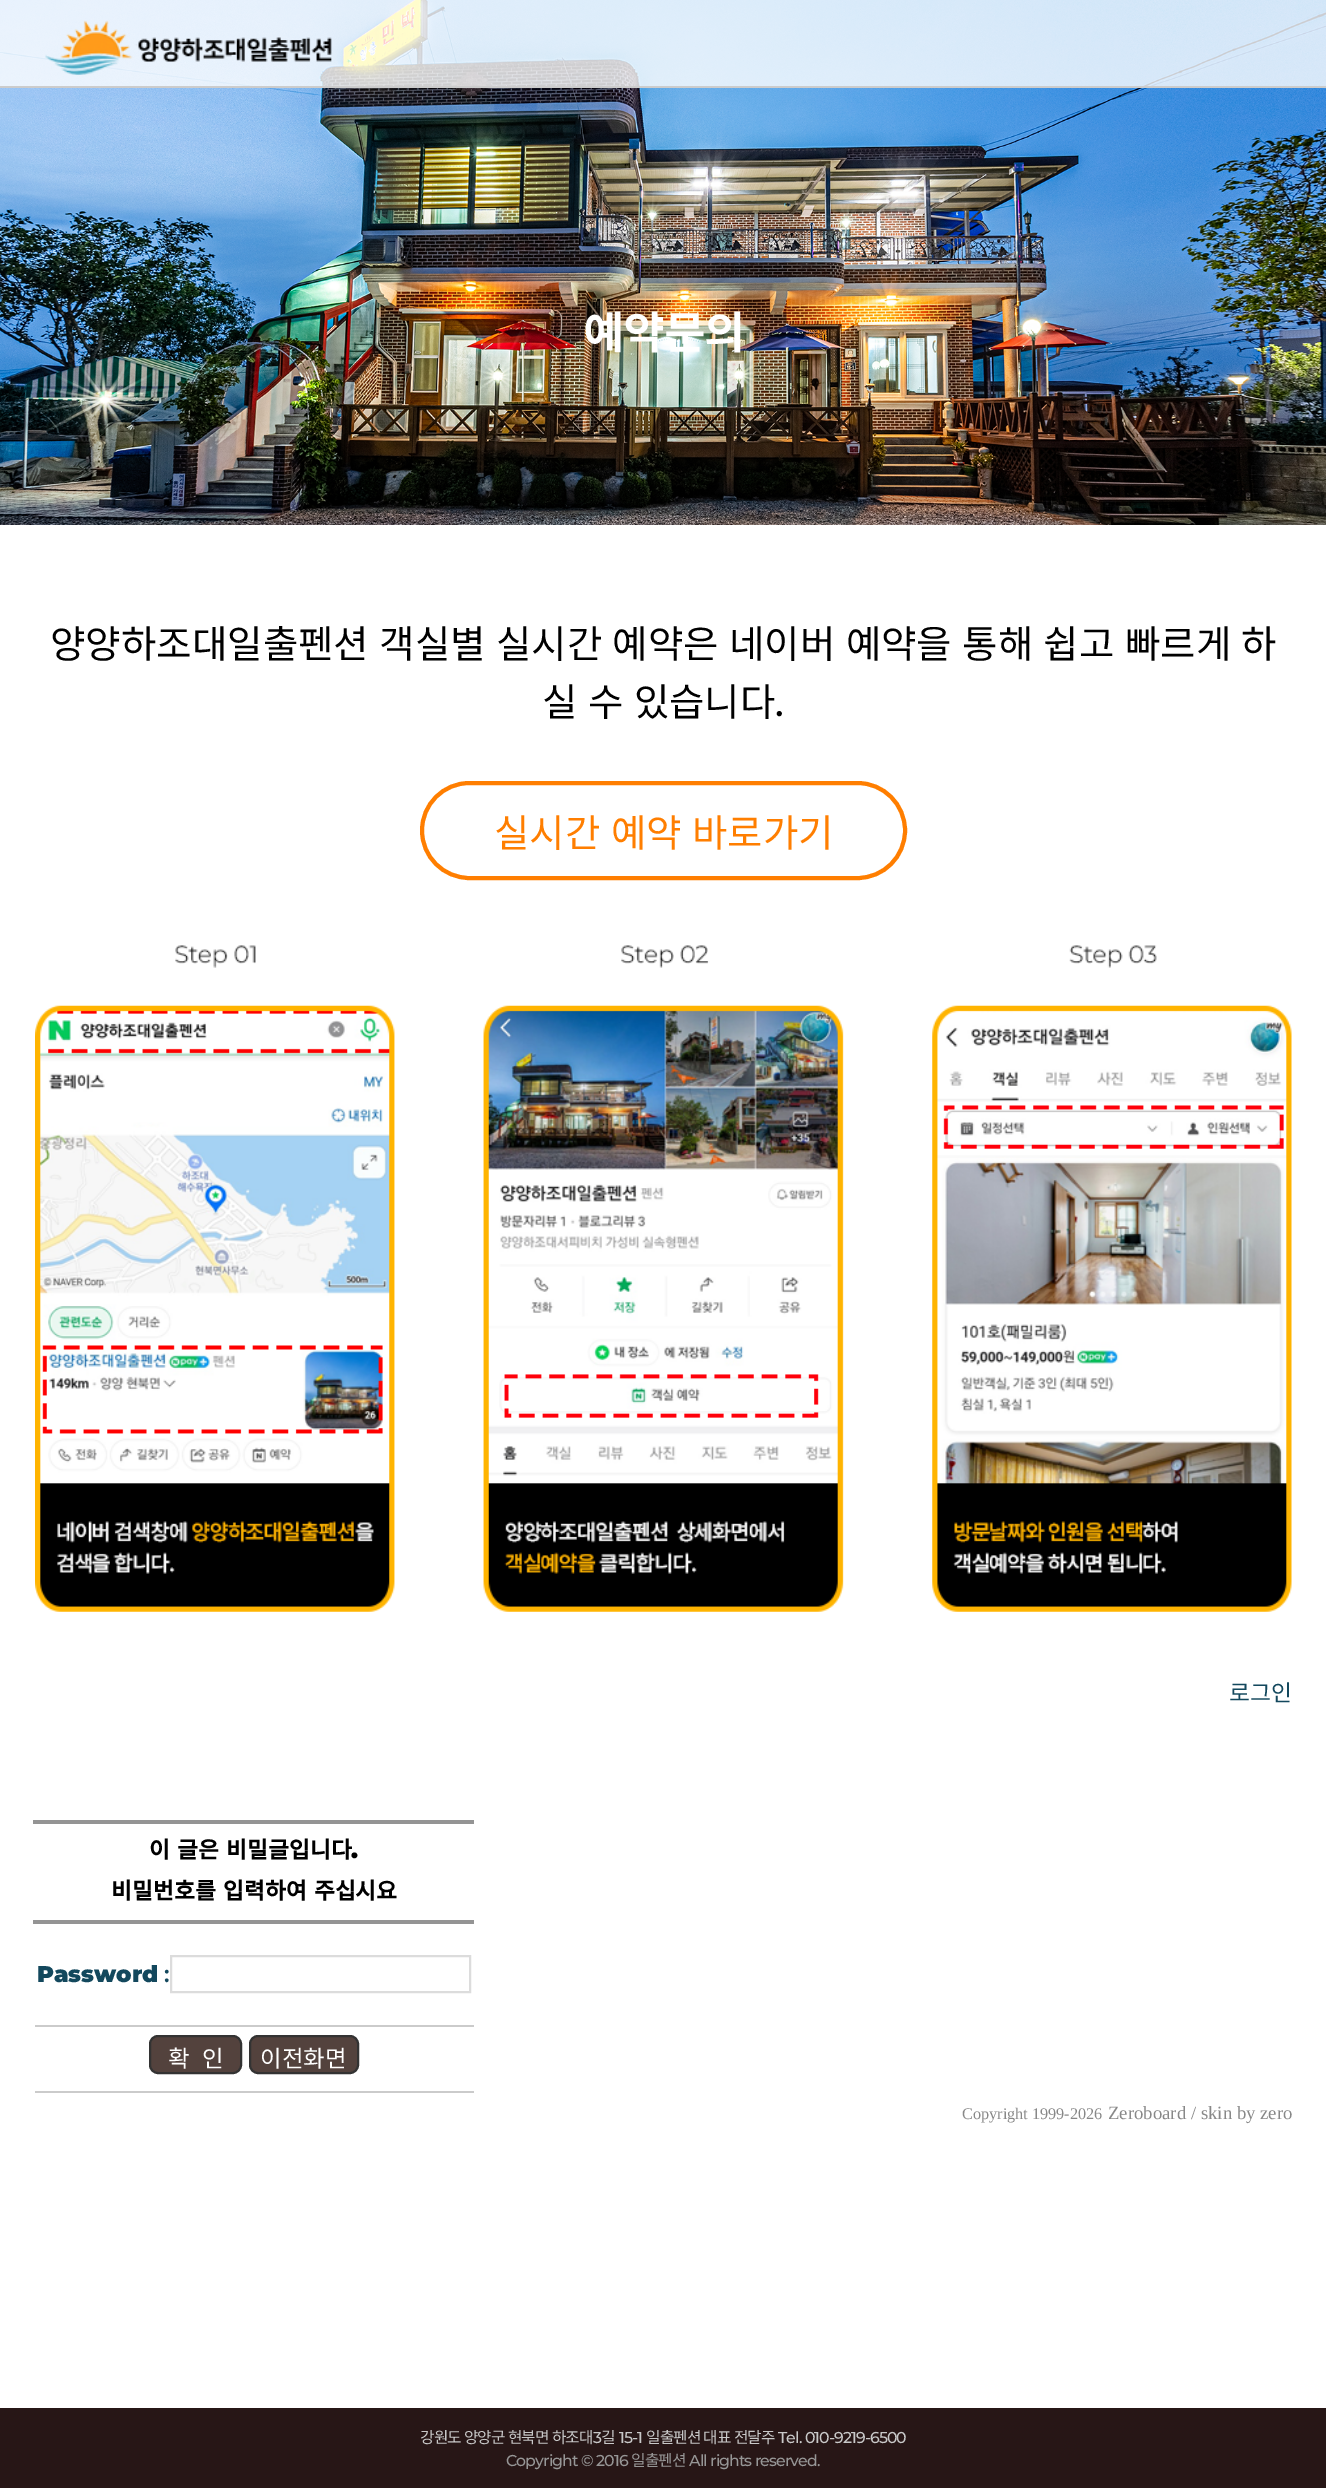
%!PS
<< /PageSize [1326 2488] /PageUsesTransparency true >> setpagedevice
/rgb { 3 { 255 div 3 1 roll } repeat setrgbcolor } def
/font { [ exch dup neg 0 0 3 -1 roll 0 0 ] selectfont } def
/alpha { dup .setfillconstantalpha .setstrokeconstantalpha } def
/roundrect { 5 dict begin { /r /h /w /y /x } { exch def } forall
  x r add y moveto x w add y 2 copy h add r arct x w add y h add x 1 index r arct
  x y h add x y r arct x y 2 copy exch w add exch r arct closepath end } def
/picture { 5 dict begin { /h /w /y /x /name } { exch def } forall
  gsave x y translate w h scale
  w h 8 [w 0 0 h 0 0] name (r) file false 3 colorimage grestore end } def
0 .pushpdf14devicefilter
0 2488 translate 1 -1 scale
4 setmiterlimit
255 255 255 rgb
0 0 1326 2488 rectfill
(img/2.rgb) 0 0 1326 525 picture
0.8 alpha
0 0 1326 86 rectfill
1 alpha
204 204 204 rgb
0 86 1326 2 rectfill
(img/1.rgb) 45 20 287 55 picture
255 126 0 rgb
4 setlinewidth
422 783 483 95 47.5 roundrect stroke
(img/3.rgb) 35 945 1257 667 picture
[
  [33 1820 441 4 148 148 148]
  [33 1920 441 4 148 148 148]
  [35 2025 439 2 203 203 203]
] { aload pop rgb rectfill } forall
220 220 220 rgb
2 setlinewidth
171 1956 299 36 rectstroke
203 203 203 rgb
35 2091 439 2 rectfill
83 66 61 rgb
150 2036 91 37 8 roundrect gsave fill grestore
51 51 51 rgb
stroke
83 66 61 rgb
250 2036 108 37 8 roundrect gsave fill grestore
51 51 51 rgb
stroke
39 22 22 rgb
0 2408 1326 80 rectfill
/NotoSansKR-Bold 44 font
255 255 255 rgb
583 349 moveto (예약문의) show
/NotoSansKR-Regular 38.5 font
0 0 0 rgb
50 658 moveto 1.75 0 32 (양양하조대일출펜션 객실별 실시간 예약은 네이버 예약을 통해 쉽고 빠르게 하) widthshow
542 716 moveto 1.75 0 32 (실 수 있습니다) widthshow
/Montserrat-Medium 38.5 font
775 716 moveto (.) show
/NotoSansKR-Regular 38.5 font
255 126 0 rgb
494 847 moveto 1.75 0 32 (실시간 예약 바로가기) widthshow
/NotoSansKR-Regular 22.75 font
19 72 93 rgb
1229 1701 moveto (로그인) show
/NotoSansKR-Bold 22.75 font
0 0 0 rgb
149 1858 moveto 2 0 32 (이 글은 비밀글입니다) widthshow
/Montserrat-Black 22.75 font
351 1858 moveto (.) show
/NotoSansKR-Bold 22.75 font
111 1899 moveto 2 0 32 (비밀번호를 입력하여 주십시요) widthshow
/Montserrat-Black 22.75 font
19 72 93 rgb
37 1982 moveto (Password) show
/Montserrat-SemiBold 22.75 font
164 1982 moveto (:) show
/NotoSansKR-Regular 23.5 font
255 255 255 rgb
168 2067 moveto 1 0 32 (확  인) widthshow
260 2067 moveto (이전화면) show
/LiberationSerif-Regular 16.25 font
136 136 136 rgb
962 2119 moveto (Copyright 1999-2026) show
/LiberationSerif-Regular 18.75 font
1108 2119 moveto (Zeroboard / skin by zero) show
/NotoSansKR-Regular 15.75 font
200 200 200 rgb
420 2443 moveto 0.5 0 32 -0.9 0 (강원도 양양군 현북면 하조대) awidthshow
/Montserrat-Medium 15.75 font
593 2443 moveto -0.9 0 (3) ashow
/NotoSansKR-Regular 15.75 font
601 2443 moveto -0.9 0 (길) ashow
/Montserrat-Medium 15.75 font
619 2443 moveto -0.9 0 (15-1) ashow
/NotoSansKR-Regular 15.75 font
646 2443 moveto 0.5 0 32 -0.9 0 (일출펜션 대표 전달주) awidthshow
/Montserrat-Medium 15.75 font
778 2443 moveto -0.9 0 (Tel. 010-9219-6500) ashow
150 150 150 rgb
506 2466 moveto -0.9 0 (Copyright © 2016) ashow
/NotoSansKR-Regular 15.75 font
631 2466 moveto -0.9 0 (일출펜션) ashow
/Montserrat-Medium 15.75 font
689 2466 moveto -0.9 0 (All rights reserved.) ashow
.poppdf14devicefilter showpage
